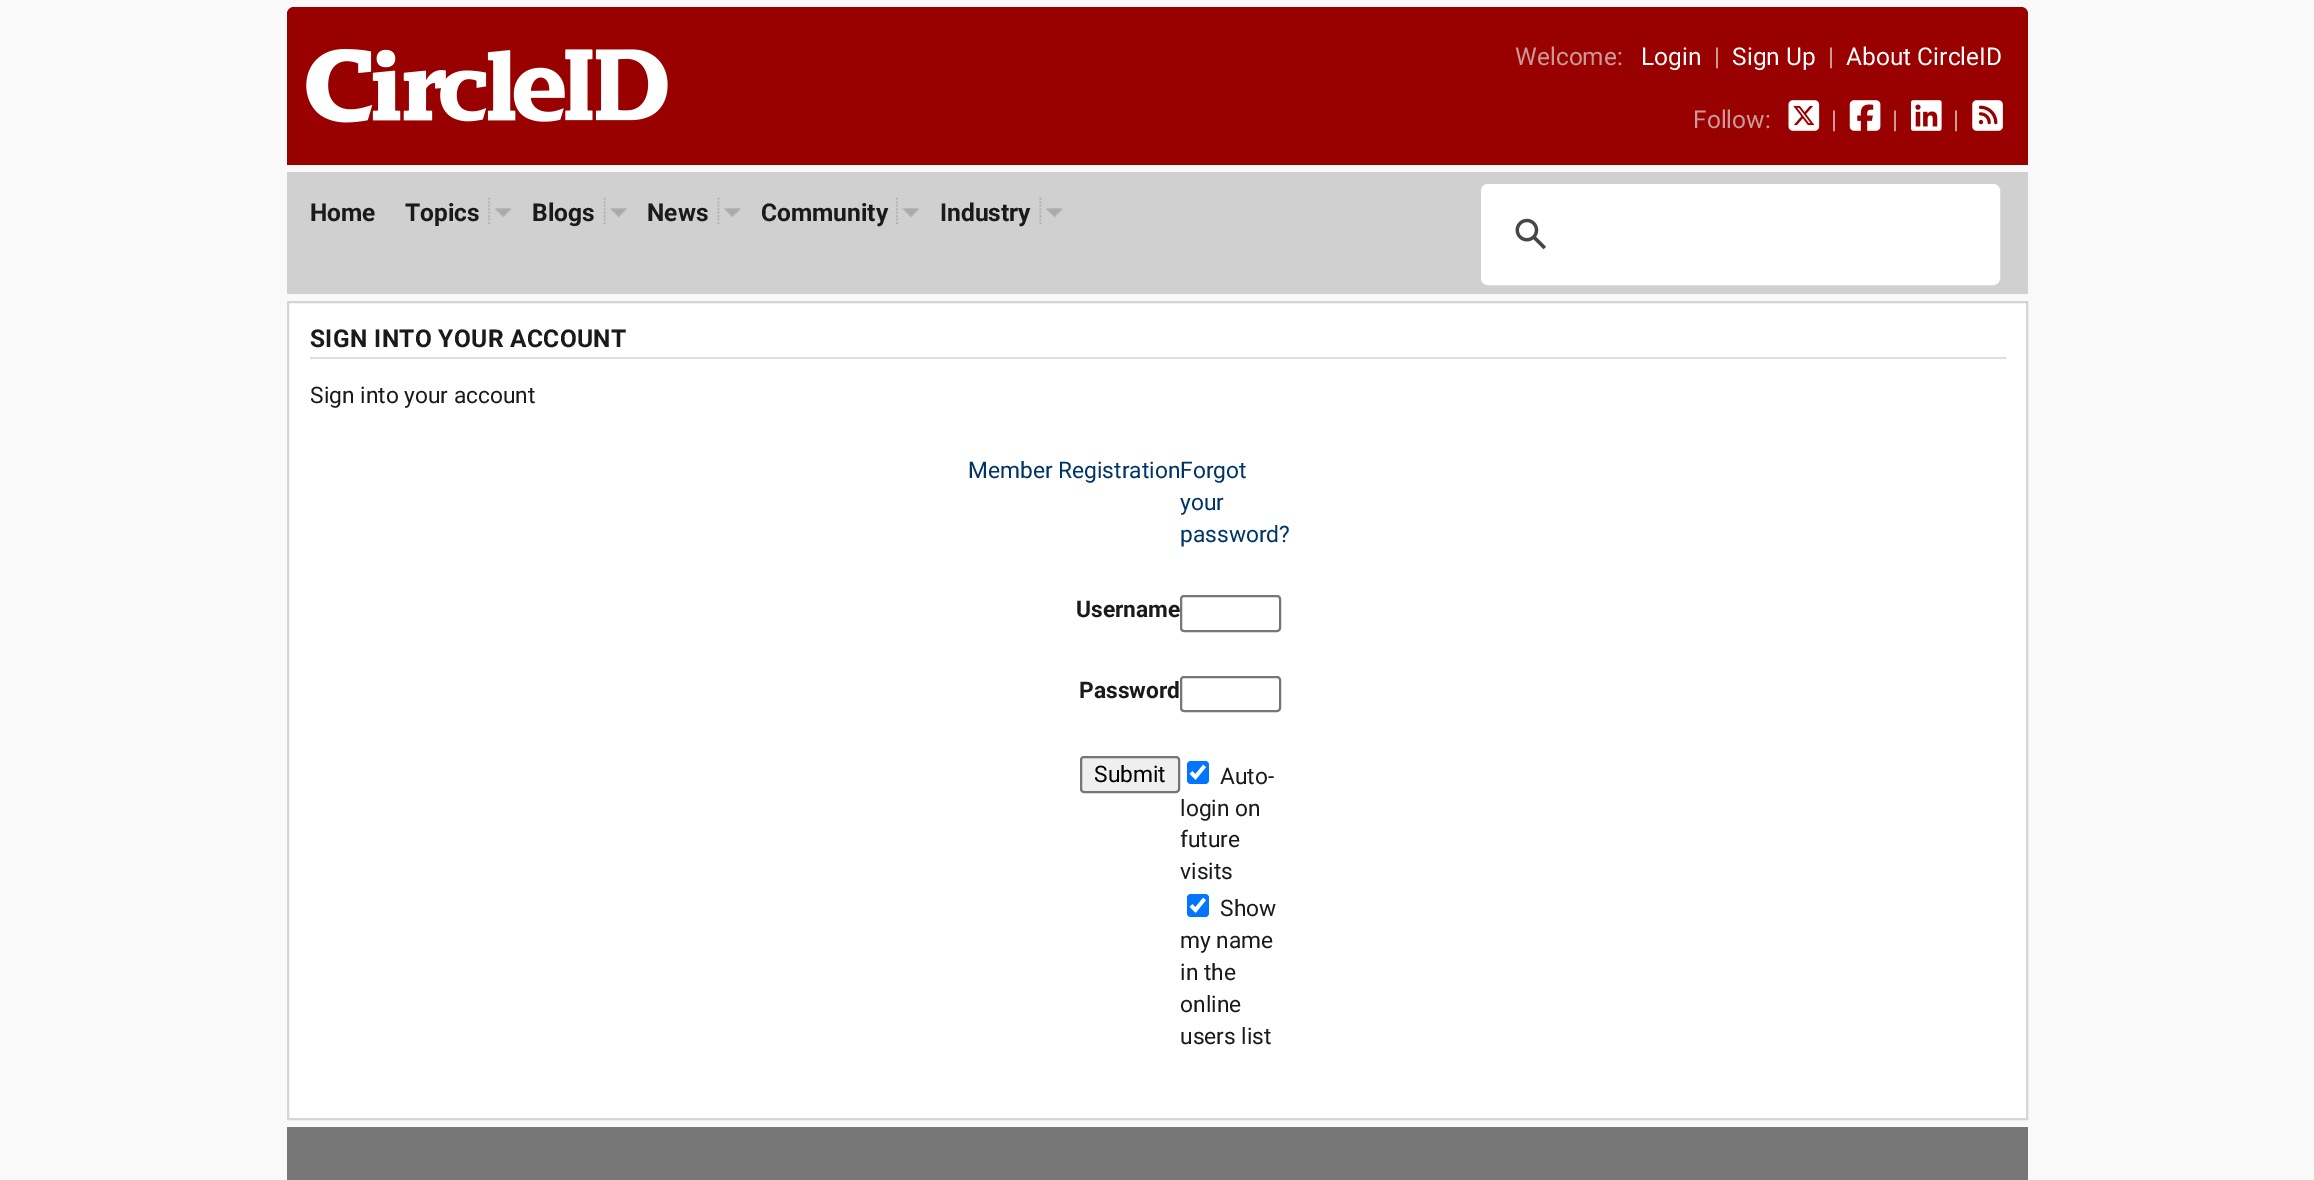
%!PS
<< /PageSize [2314 1180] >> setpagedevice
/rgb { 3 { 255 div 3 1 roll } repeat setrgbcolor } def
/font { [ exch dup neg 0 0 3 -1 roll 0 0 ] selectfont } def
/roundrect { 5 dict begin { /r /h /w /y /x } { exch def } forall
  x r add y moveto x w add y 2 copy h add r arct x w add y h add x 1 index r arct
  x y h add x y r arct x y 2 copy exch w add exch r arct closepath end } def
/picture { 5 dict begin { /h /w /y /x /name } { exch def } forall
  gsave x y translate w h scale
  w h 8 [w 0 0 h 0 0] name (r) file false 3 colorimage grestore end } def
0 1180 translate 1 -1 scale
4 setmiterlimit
249 249 249 rgb
0 0 2314 1180 rectfill
153 0 0 rgb
294 7 moveto 2021 7 lineto 2025 7 2028 10 2028 14 curveto 2028 165 lineto 287 165 lineto 287 14 lineto 287 10 290 7 294 7 curveto closepath fill
(img/1.rgb) 306 49 362 74 picture
(img/2.rgb) 1788 100 32 31 picture
(img/3.rgb) 1849 100 32 31 picture
(img/4.rgb) 1911 100 31 31 picture
(img/5.rgb) 1972 100 31 31 picture
208 208 208 rgb
287 172 1741 122 rectfill
(img/6.rgb) 488 197 23 27 picture
(img/7.rgb) 603 197 24 27 picture
(img/8.rgb) 717 197 24 27 picture
(img/9.rgb) 896 197 23 27 picture
(img/10.rgb) 1039 197 24 27 picture
255 255 255 rgb
1482 185 517 99 6 roundrect gsave fill grestore
2 setlinewidth
stroke
(img/11.rgb) 1515 218 31 32 picture
288 302 moveto 2027 302 lineto 2027 1119 lineto 288 1119 lineto closepath gsave fill grestore
213 213 213 rgb
stroke
221 221 221 rgb
310 357 1696 2 rectfill
118 118 118 rgb
1181 596 99 35 3 roundrect stroke
1181 677 99 34 3 roundrect stroke
239 239 239 rgb
1081 757 98 35 3 roundrect gsave fill grestore
118 118 118 rgb
stroke
0 117 255 rgb
1187 761 22 23 4 roundrect fill
255 255 255 rgb
3.6 setlinewidth
1191 772.5 moveto 1195.5 777 lineto 1204.5 766 lineto stroke
0 117 255 rgb
1187 894 22 23 4 roundrect fill
255 255 255 rgb
1191 905.5 moveto 1195.5 910 lineto 1204.5 899 lineto stroke
119 119 119 rgb
287 1127 1741 53 rectfill
/Roboto-Regular 24.5 font
204 153 153 rgb
1515 65 moveto (Welcome:) show
255 255 255 rgb
1641 65 moveto (Login) show
204 153 153 rgb
1714 65 moveto (|) show
255 255 255 rgb
1732 65 moveto (Sign Up) show
204 153 153 rgb
1828 65 moveto (|) show
255 255 255 rgb
1846 65 moveto (About CircleID) show
204 153 153 rgb
[
  [(Follow:) 1693 128]
  [(|) 1831 128]
  [(|) 1892 128]
  [(|) 1953 128]
] { aload pop moveto show } forall
/Roboto-Bold 24.5 font
26 26 26 rgb
[
  [(Home) 310 221]
  [(Topics) 405 221]
  [(Blogs) 532 221]
  [(News) 647 221]
  [(Community) 761 221]
  [(Industry) 940 221]
] { aload pop moveto show } forall
310 347 moveto 0.35 0 (SIGN INTO YOUR ACCOUNT) ashow
/Roboto-Regular 22.75 font
310 403 moveto (Sign into your account) show
0 51 102 rgb
[
  [(Member RegistrationForgot) 968 478]
  [(your) 1180 510]
  [(password?) 1180 542]
] { aload pop moveto show } forall
/Roboto-Bold 22.75 font
26 26 26 rgb
1076 617 moveto (Username) show
1079 698 moveto (Password) show
/Roboto-Regular 22.75 font
0 0 0 rgb
1094 782 moveto (Submit) show
26 26 26 rgb
[
  [(Auto-) 1220 784]
  [(login on) 1180 816]
  [(future) 1180 847]
  [(visits) 1180 879]
  [(Show) 1220 916]
  [(my name) 1180 948]
  [(in the) 1180 980]
  [(online) 1180 1012]
  [(users list) 1180 1044]
] { aload pop moveto show } forall
showpage
